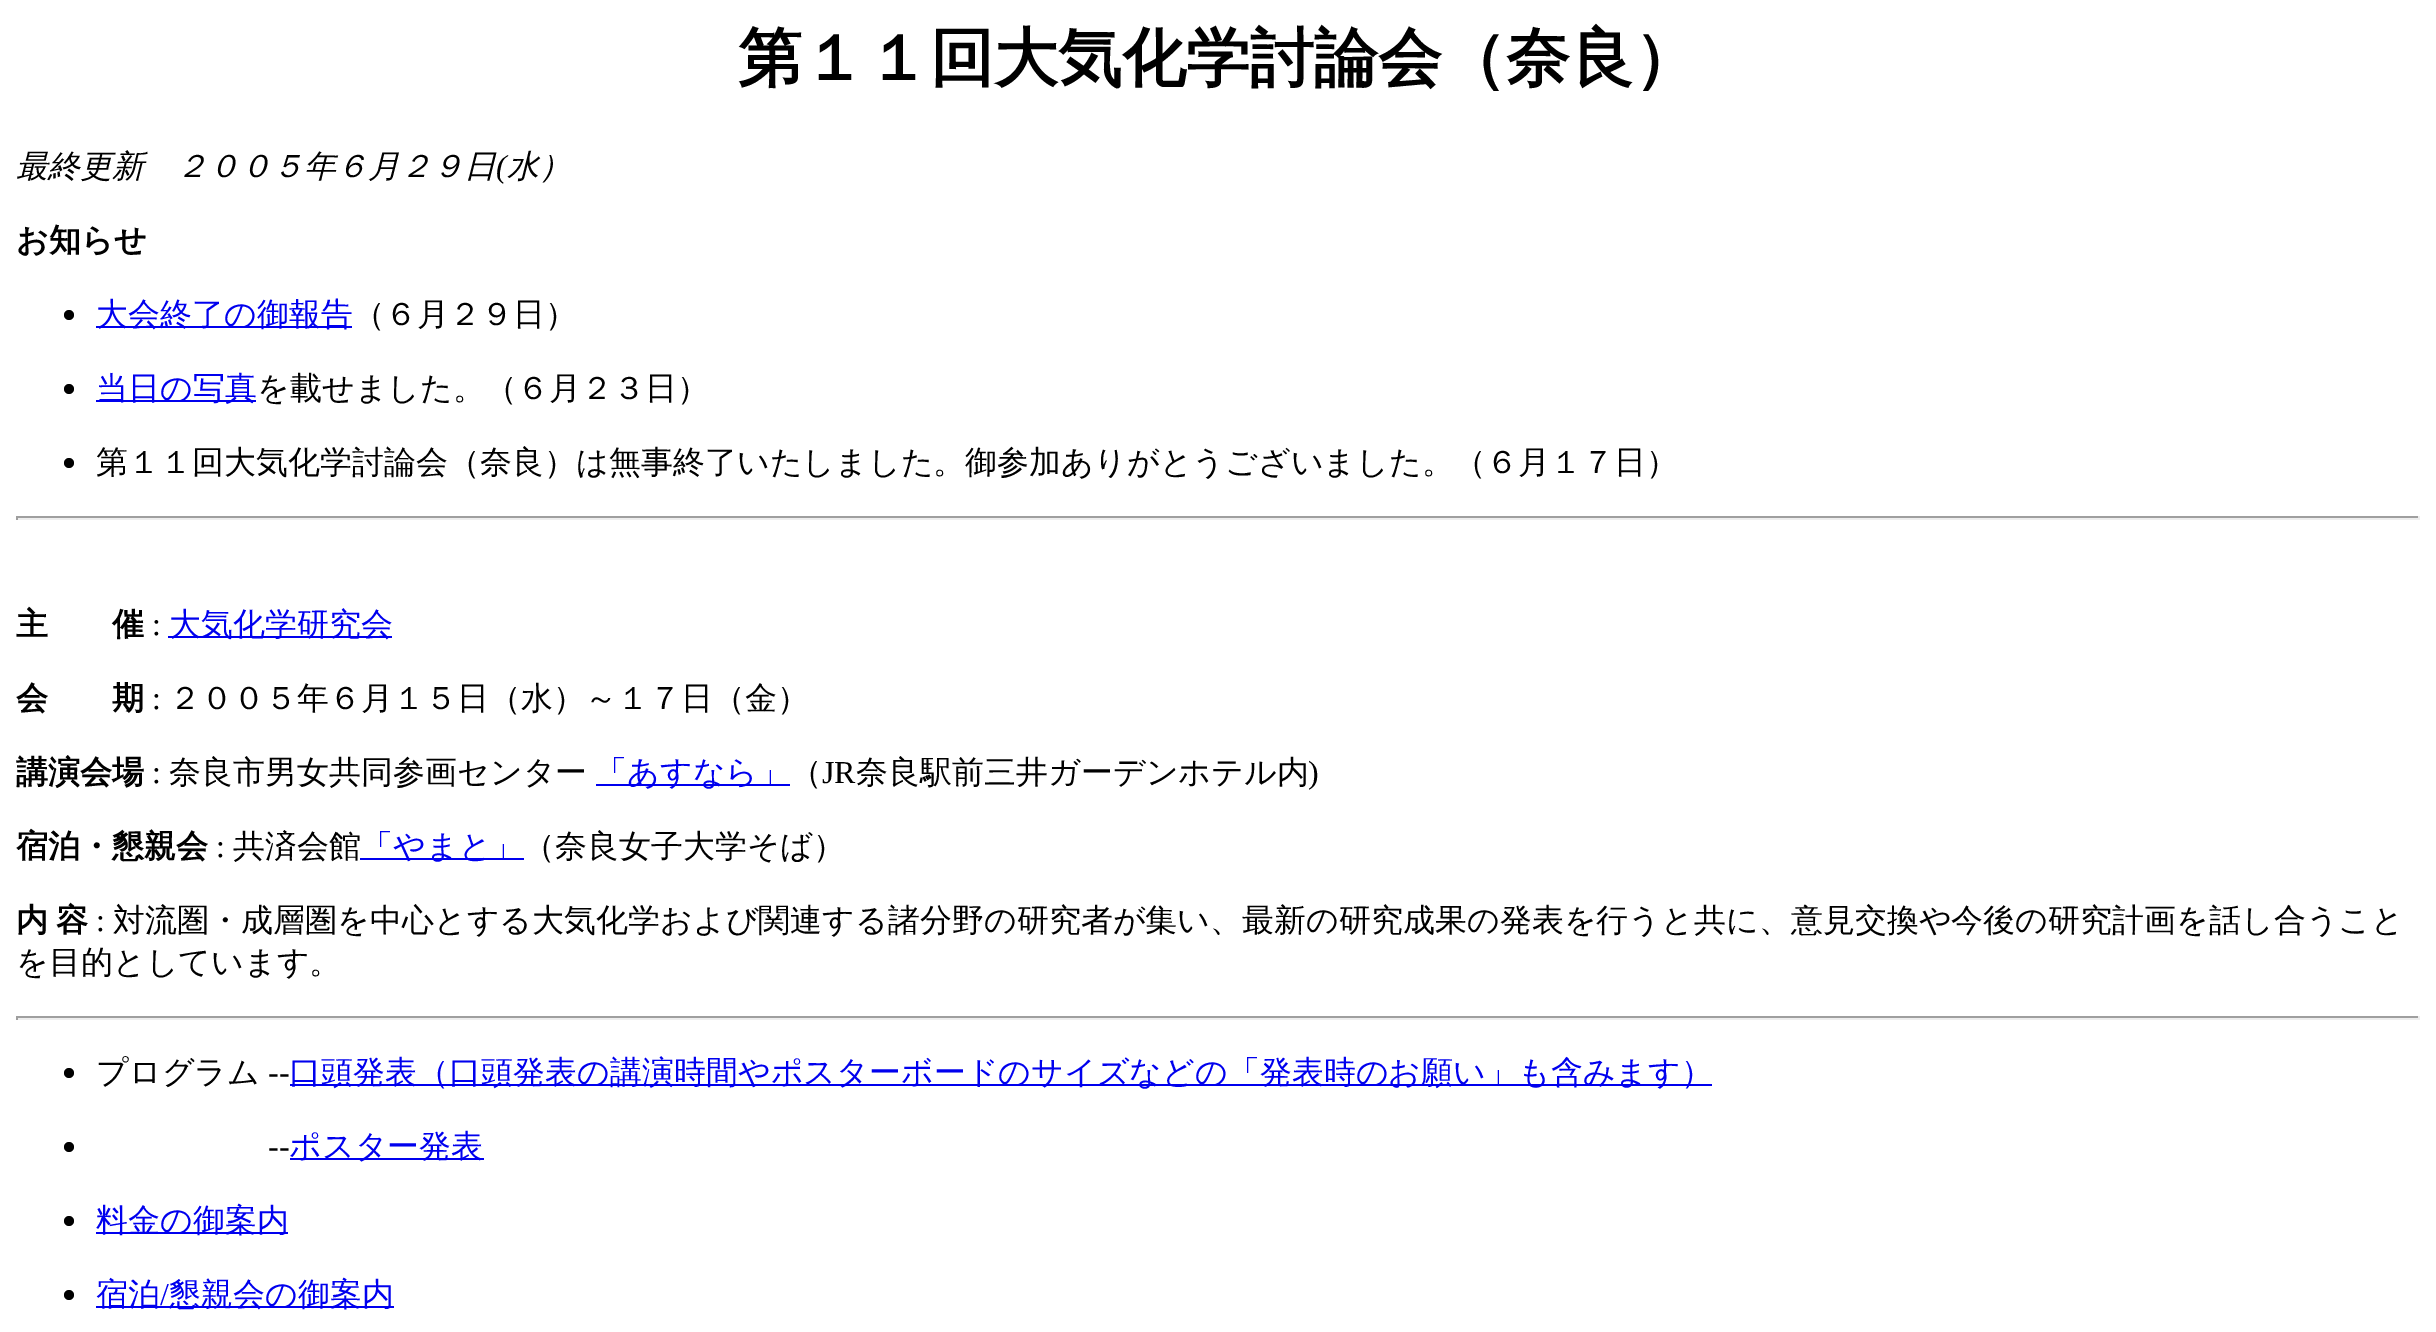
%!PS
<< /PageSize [2436 1332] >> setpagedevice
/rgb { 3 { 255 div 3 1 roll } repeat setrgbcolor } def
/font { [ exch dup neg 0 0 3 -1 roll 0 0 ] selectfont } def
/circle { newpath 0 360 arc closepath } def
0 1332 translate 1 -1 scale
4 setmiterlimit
255 255 255 rgb
0 0 2436 1332 rectfill
0 0 0 rgb
69 315 5 circle fill
0 0 238 rgb
96 326 256 2 rectfill
0 0 0 rgb
69 389 5 circle fill
0 0 238 rgb
96 400 160 2 rectfill
0 0 0 rgb
69 463 5 circle fill
[
  [16 516 2404 2 159 159 159]
  [2418 516 2 4 238 238 238]
  [16 518 2404 2 238 238 238]
  [16 516 2 4 159 159 159]
  [168 636 224 2 0 0 238]
  [596 784 194 2 0 0 238]
  [360 858 164 2 0 0 238]
  [16 1016 2404 2 159 159 159]
  [2418 1016 2 4 238 238 238]
  [16 1018 2404 2 238 238 238]
  [16 1016 2 4 159 159 159]
] { aload pop rgb rectfill } forall
0 0 0 rgb
69 1073 5 circle fill
0 0 238 rgb
290 1084 1422 2 rectfill
0 0 0 rgb
69 1147 5 circle fill
0 0 238 rgb
290 1158 194 2 rectfill
0 0 0 rgb
69 1221 5 circle fill
0 0 238 rgb
96 1232 192 2 rectfill
0 0 0 rgb
69 1295 5 circle fill
0 0 238 rgb
96 1306 298 2 rectfill
/WenQuanYiZenHei-Bold 64 font
0 0 0 rgb
738 80 moveto (第１１回大気化学討論会（奈良）) show
/WenQuanYiZenHei-MediumItalic 32 font
16 177 moveto (最終更新　２００５年６月２９日) show
/LiberationSerif-Italic 32 font
496 177 moveto (\() show
/WenQuanYiZenHei-MediumItalic 32 font
507 177 moveto (水）) show
/WenQuanYiZenHei-Bold 32 font
16 251 moveto (お知らせ) show
/WenQuanYiZenHei-Medium 32 font
0 0 238 rgb
96 325 moveto (大会終了の御報告) show
0 0 0 rgb
353 325 moveto (（６月２９日）) show
0 0 238 rgb
96 399 moveto (当日の写真) show
0 0 0 rgb
257 399 moveto (を載せました。（６月２３日）) show
96 473 moveto (第１１回大気化学討論会（奈良）は無事終了いたしました。御参加ありがとうございました。（６月１７日）) show
/WenQuanYiZenHei-Bold 32 font
16 635 moveto (主　　催) show
/LiberationSerif-Regular 32 font
152 635 moveto (:) show
/WenQuanYiZenHei-Medium 32 font
0 0 238 rgb
169 635 moveto (大気化学研究会) show
/WenQuanYiZenHei-Bold 32 font
0 0 0 rgb
16 709 moveto (会　　期) show
/LiberationSerif-Regular 32 font
152 709 moveto (:) show
/WenQuanYiZenHei-Medium 32 font
169 709 moveto (２００５年６月１５日（水）～１７日（金）) show
/WenQuanYiZenHei-Bold 32 font
16 783 moveto (講演会場) show
/LiberationSerif-Regular 32 font
152 783 moveto (:) show
/WenQuanYiZenHei-Medium 32 font
169 783 moveto (奈良市男女共同参画センター) show
0 0 238 rgb
595 783 moveto (「あすなら」) show
0 0 0 rgb
790 783 moveto (（) show
/LiberationSerif-Regular 32 font
822 783 moveto (JR) show
/WenQuanYiZenHei-Medium 32 font
856 783 moveto (奈良駅前三井ガーデンホテル内) show
/LiberationSerif-Regular 32 font
1308 783 moveto (\)) show
/WenQuanYiZenHei-Bold 32 font
16 857 moveto (宿泊・懇親会) show
/LiberationSerif-Regular 32 font
216 857 moveto (:) show
/WenQuanYiZenHei-Medium 32 font
233 857 moveto (共済会館) show
0 0 238 rgb
361 857 moveto (「やまと」) show
0 0 0 rgb
523 857 moveto (（奈良女子大学そば）) show
/WenQuanYiZenHei-Bold 32 font
16 931 moveto -2 0 32 (内 容) widthshow
/LiberationSerif-Regular 32 font
96 931 moveto (:) show
/WenQuanYiZenHei-Medium 32 font
[
  [(対流圏・成層圏を中心とする大気化学および関連する諸分野の研究者が集い、最新の研究成果の発表を行うと共に、意見交換や今後の研究計画を話し合うこと) 113 931]
  [(を目的としています。) 16 973]
  [(プログラム) 96 1083]
] { aload pop moveto show } forall
/LiberationSerif-Regular 32 font
268 1083 moveto (--) show
/WenQuanYiZenHei-Medium 32 font
0 0 238 rgb
289 1083 moveto (口頭発表（口頭発表の講演時間やポスターボードのサイズなどの「発表時のお願い」も含みます）) show
/LiberationSerif-Regular 32 font
0 0 0 rgb
268 1157 moveto (--) show
/WenQuanYiZenHei-Medium 32 font
0 0 238 rgb
[
  [(ポスター発表) 289 1157]
  [(料金の御案内) 96 1231]
  [(宿泊) 96 1305]
] { aload pop moveto show } forall
/LiberationSerif-Regular 32 font
160 1305 moveto (/) show
/WenQuanYiZenHei-Medium 32 font
169 1305 moveto (懇親会の御案内) show
showpage
